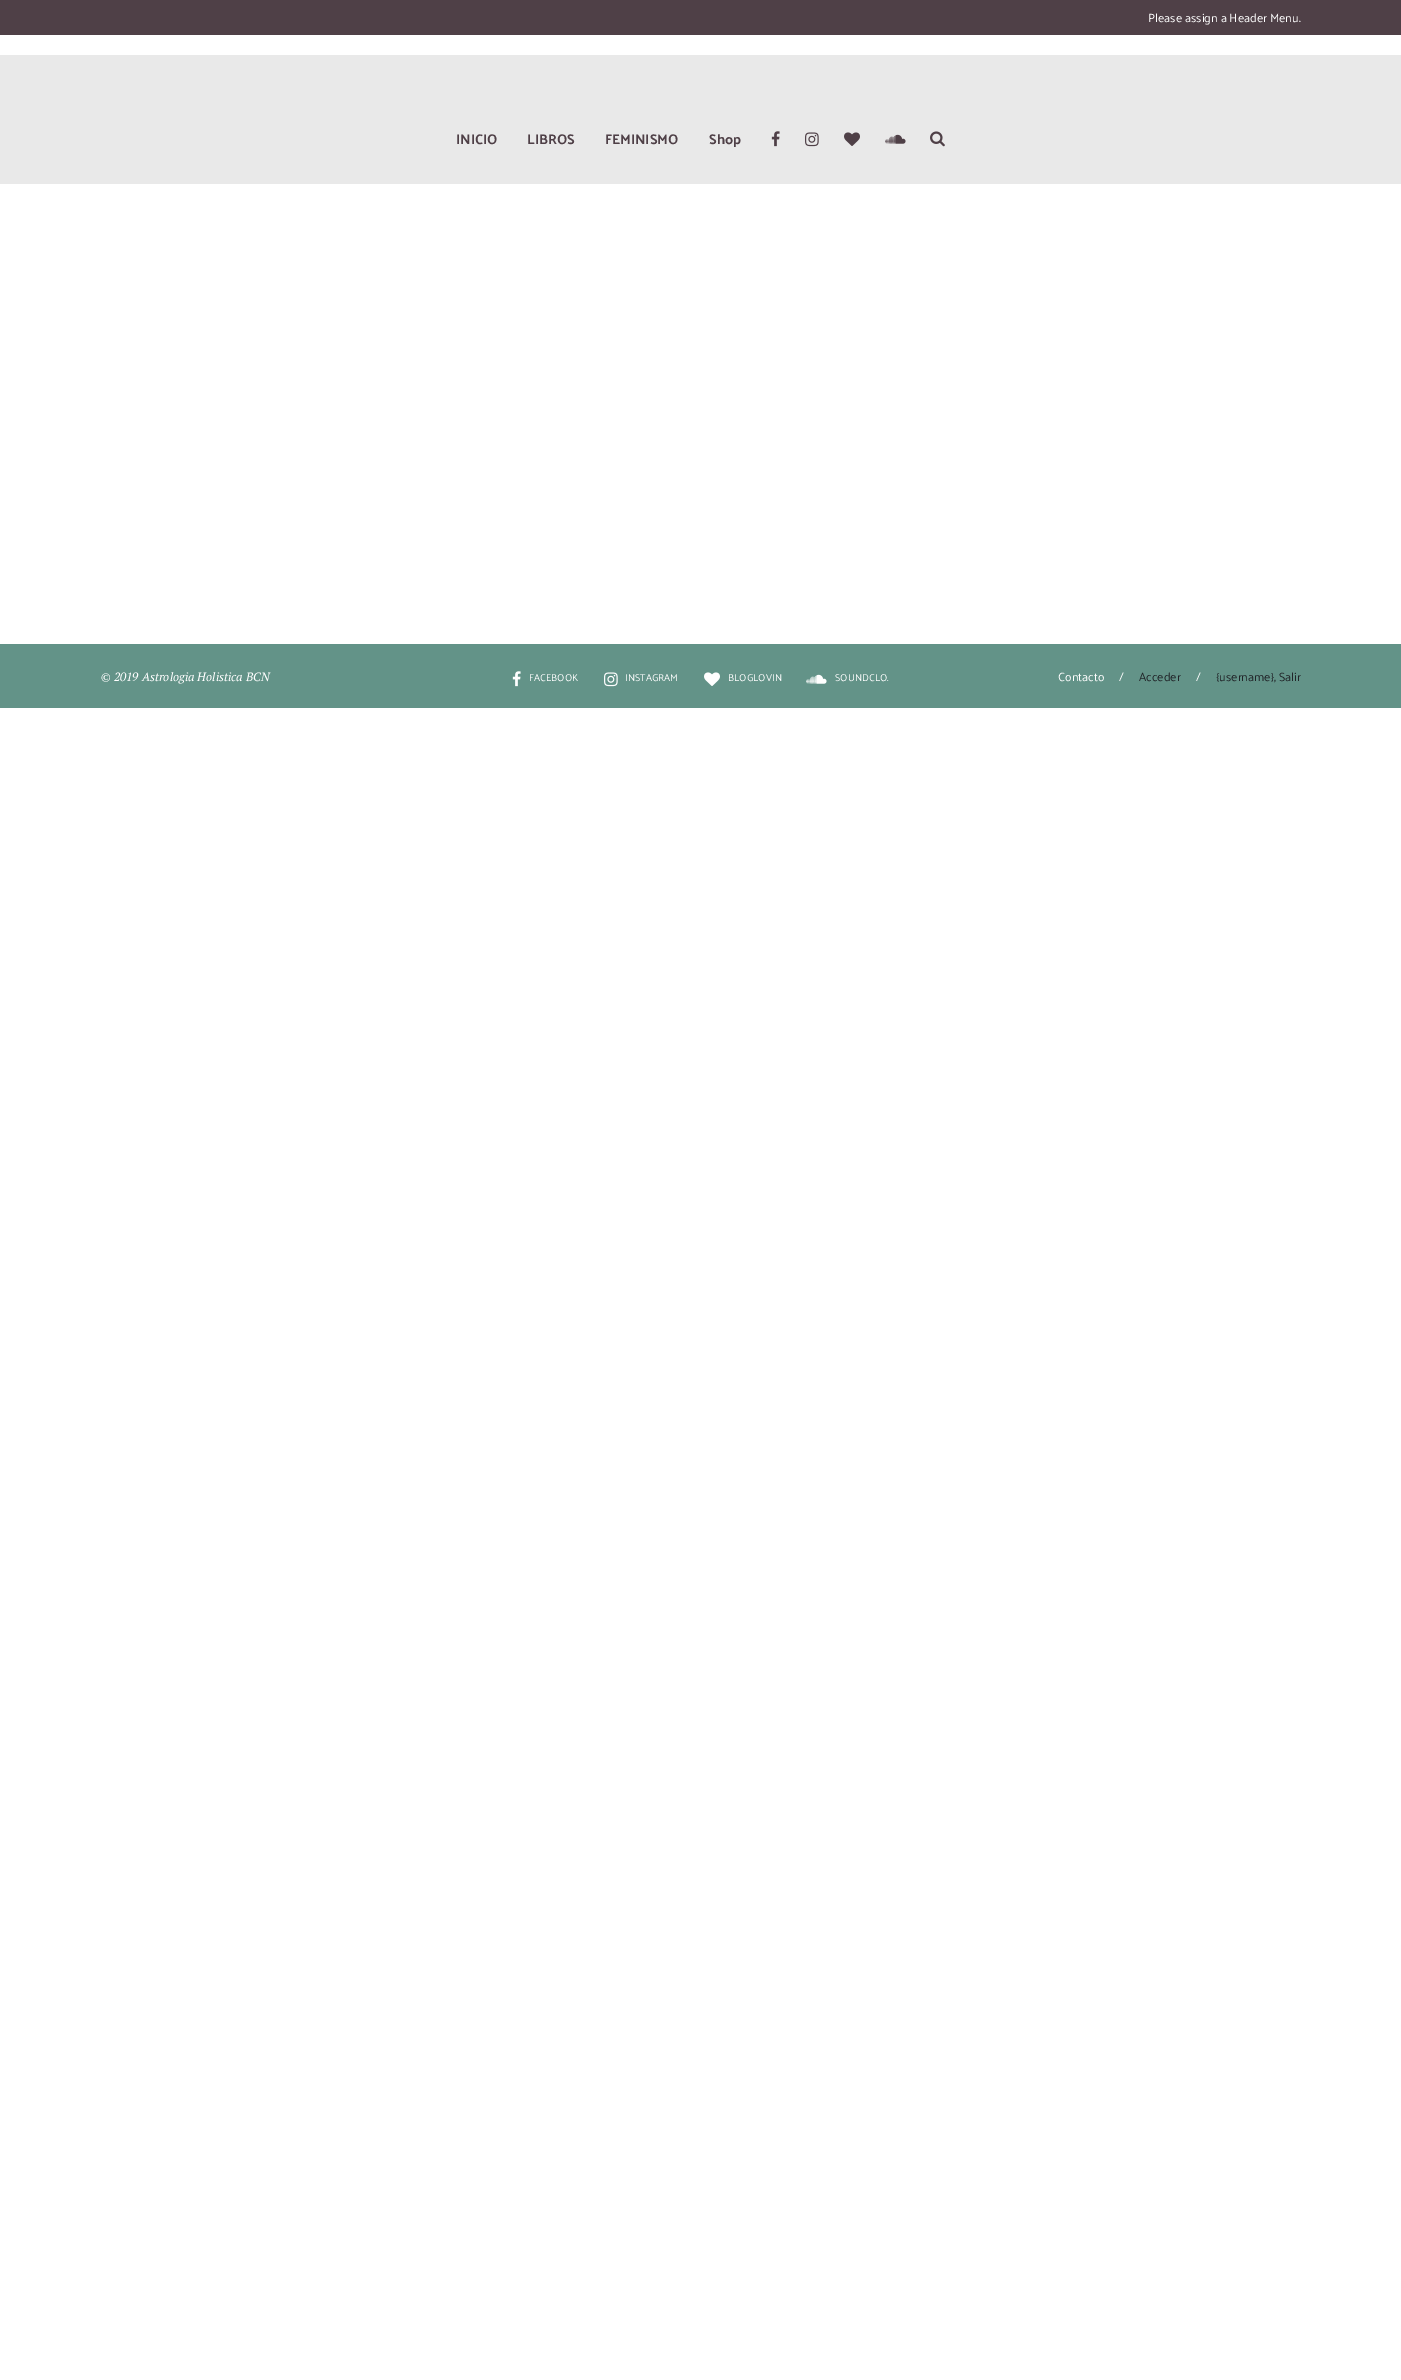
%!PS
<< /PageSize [1401 2380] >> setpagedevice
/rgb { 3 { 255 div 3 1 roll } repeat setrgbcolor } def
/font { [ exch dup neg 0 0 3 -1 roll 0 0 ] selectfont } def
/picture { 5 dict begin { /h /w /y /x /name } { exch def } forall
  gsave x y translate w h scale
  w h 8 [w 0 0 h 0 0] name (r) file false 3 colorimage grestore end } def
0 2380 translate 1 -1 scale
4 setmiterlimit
255 255 255 rgb
0 0 1401 2380 rectfill
79 64 71 rgb
0 0 1401 35 rectfill
233 233 233 rgb
0 55 1401 129 rectfill
(img/1.rgb) 771 131 9 16 picture
(img/2.rgb) 805 132 14 15 picture
(img/3.rgb) 844 132 16 14 picture
(img/4.rgb) 885 134 21 10 picture
(img/5.rgb) 930 131 15 16 picture
99 147 136 rgb
0 644 1401 64 rectfill
(img/6.rgb) 512 671 9 16 picture
(img/7.rgb) 604 672 14 15 picture
(img/8.rgb) 704 672 16 14 picture
(img/9.rgb) 806 674 21 10 picture
/Palanquin-Regular 12 font
255 255 255 rgb
1148 22 moveto (Please assign a Header Menu.) show
/Palanquin-Bold 14 font
79 64 71 rgb
[
  [(INICIO) 456 144]
  [(LIBROS) 527 144]
  [(FEMINISMO) 605 144]
  [(Shop) 709 144]
] { aload pop moveto show } forall
/PTSerif-Italic 12 font
255 255 255 rgb
101 681 moveto (© 2019 Astrologia Holistica BCN) show
/Palanquin-Regular 10 font
[
  [(FACEBOOK) 529 681]
  [(INSTAGRAM) 625 681]
  [(BLOGLOVIN) 728 681]
  [(SOUNDCLO.) 835 681]
] { aload pop moveto show } forall
/Palanquin-Regular 12 font
1058 681 moveto (Contacto) show
1119 681 moveto (/) show
33 37 41 rgb
1139 681 moveto (Acceder) show
255 255 255 rgb
1196 681 moveto (/) show
33 37 41 rgb
1216 681 moveto ({username}, Salir) show
showpage
